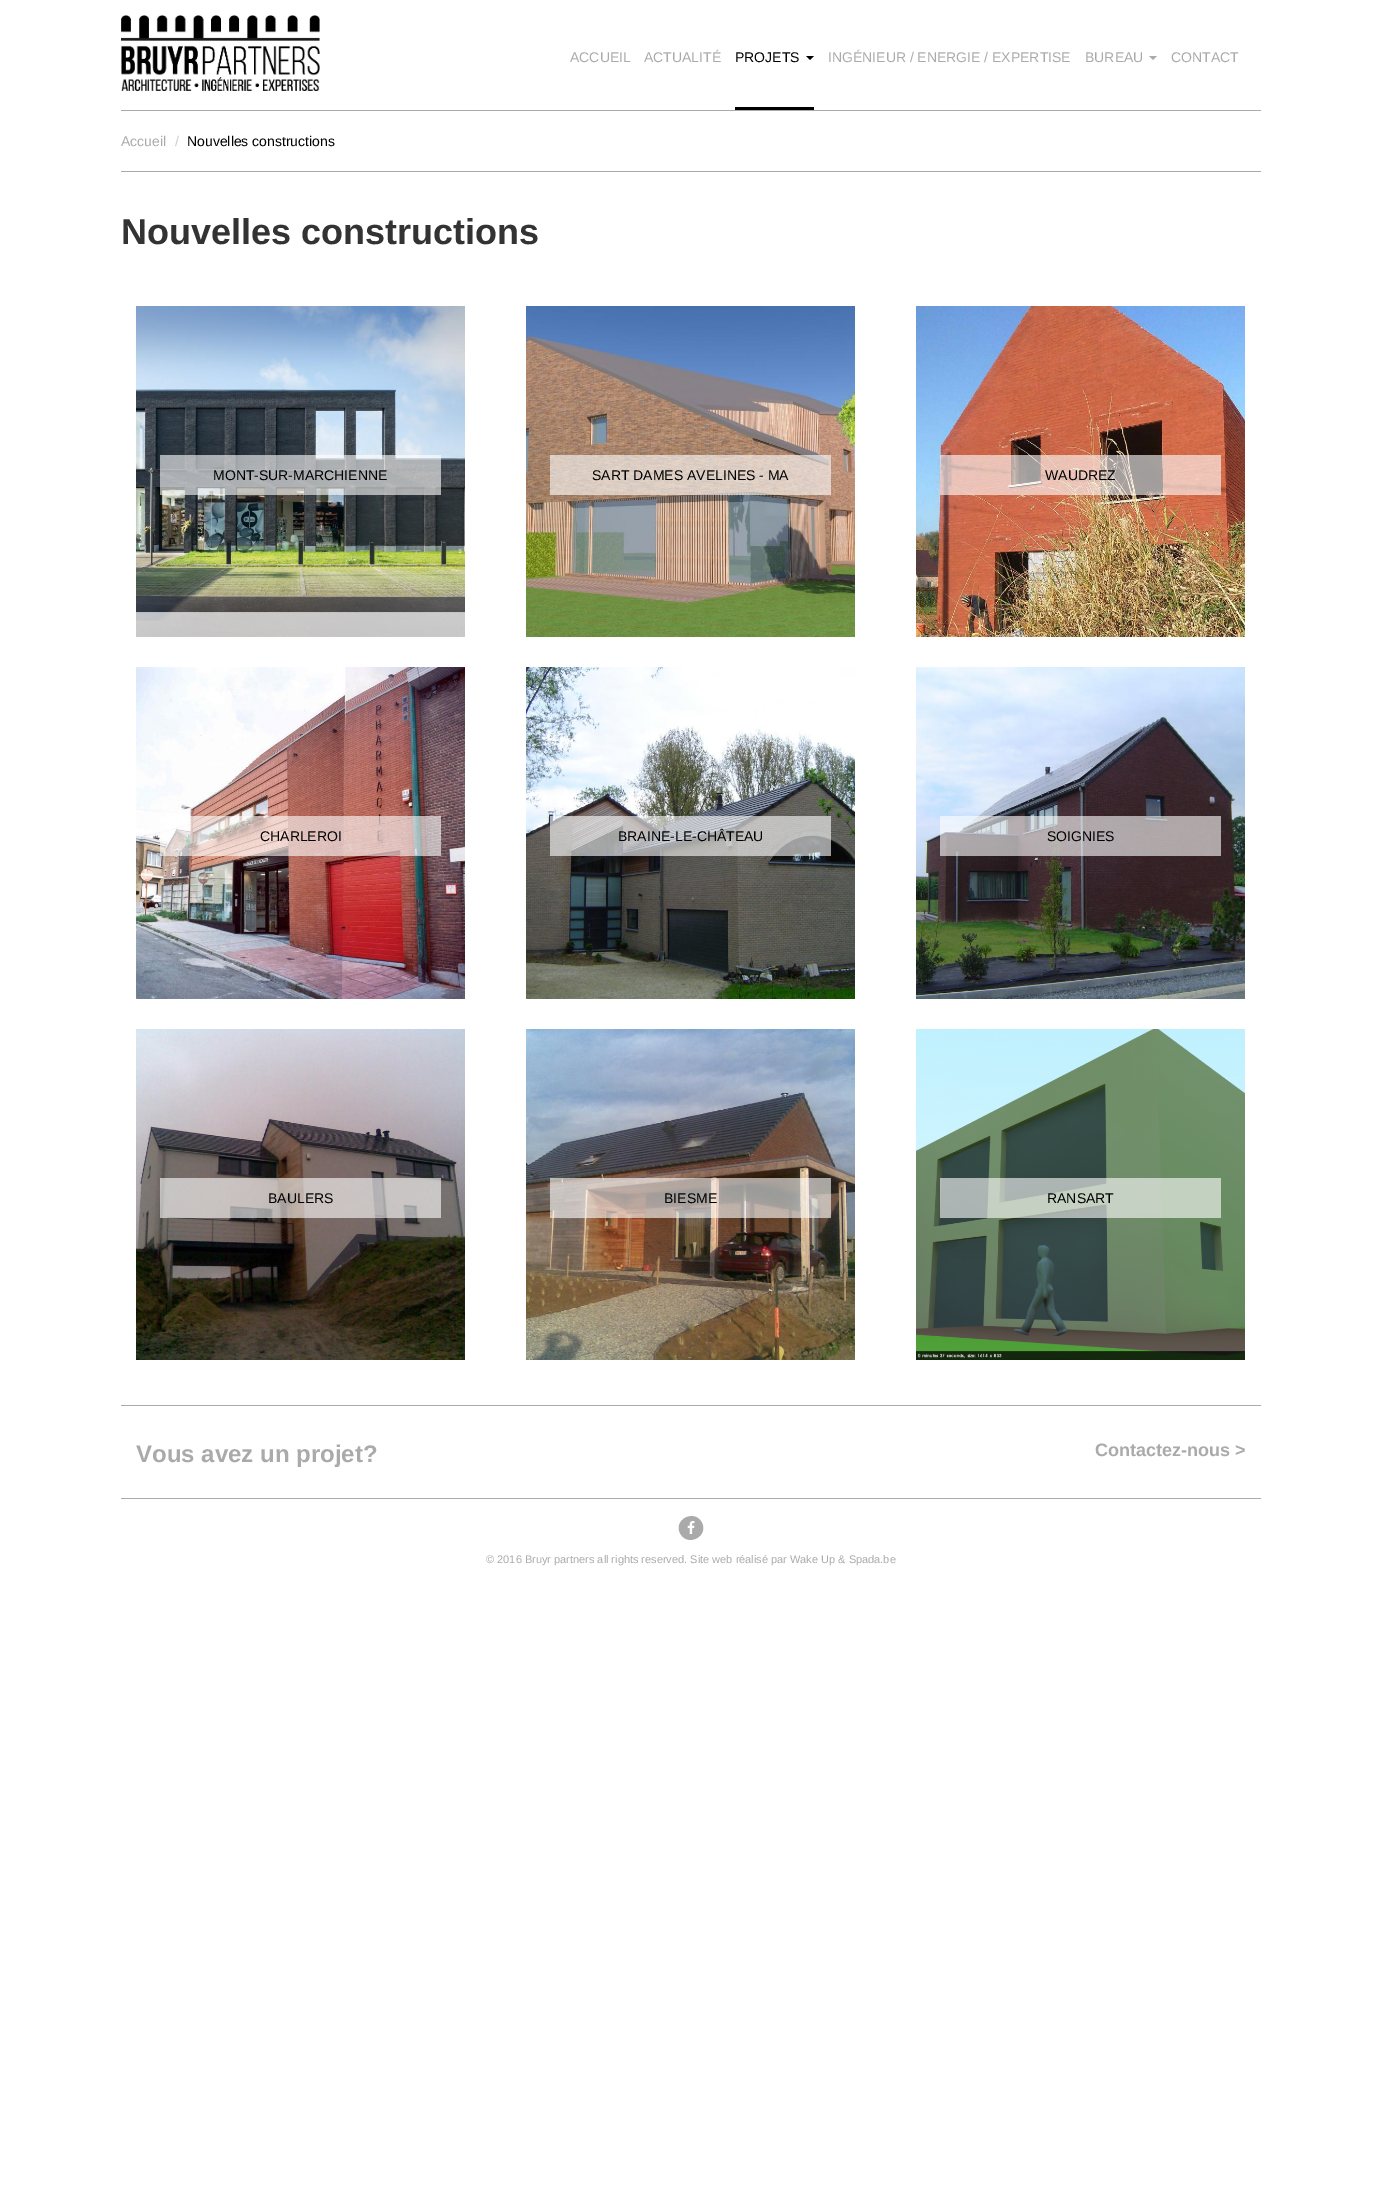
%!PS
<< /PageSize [1381 2211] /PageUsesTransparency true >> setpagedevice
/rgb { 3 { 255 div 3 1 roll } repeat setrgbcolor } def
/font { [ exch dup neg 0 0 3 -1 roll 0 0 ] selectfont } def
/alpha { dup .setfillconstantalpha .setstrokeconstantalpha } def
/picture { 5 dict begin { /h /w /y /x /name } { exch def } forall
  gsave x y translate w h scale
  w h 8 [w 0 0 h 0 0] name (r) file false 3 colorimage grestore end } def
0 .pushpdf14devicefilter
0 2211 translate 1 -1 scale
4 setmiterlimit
255 255 255 rgb
0 0 1381 2211 rectfill
170 170 170 rgb
121 110 1140 1 rectfill
(img/1.rgb) 121 15 199 76 picture
0 0 0 rgb
735 107 79 3 rectfill
806 56 moveto 814 56 lineto 810 60 lineto closepath fill
170 170 170 rgb
1149 56 moveto 1157 56 lineto 1153 60 lineto closepath fill
121 171 1140 1 rectfill
(img/2.rgb) 136 306 329 331 picture
0.6 alpha
255 255 255 rgb
160 455 281 40 rectfill
1 alpha
(img/3.rgb) 526 306 329 331 picture
0.6 alpha
550 455 281 40 rectfill
1 alpha
(img/4.rgb) 916 306 329 331 picture
0.6 alpha
940 455 281 40 rectfill
1 alpha
(img/5.rgb) 136 667 329 332 picture
0.6 alpha
160 816 281 40 rectfill
1 alpha
(img/6.rgb) 526 667 329 332 picture
0.6 alpha
550 816 281 40 rectfill
1 alpha
(img/7.rgb) 916 667 329 332 picture
0.6 alpha
940 816 281 40 rectfill
1 alpha
(img/8.rgb) 136 1029 329 331 picture
0.6 alpha
160 1178 281 40 rectfill
1 alpha
(img/9.rgb) 526 1029 329 331 picture
0.6 alpha
550 1178 281 40 rectfill
1 alpha
(img/10.rgb) 916 1029 329 331 picture
0.6 alpha
[
  [940 1178 281 40 255 255 255]
] { aload pop rgb rectfill } forall
1 alpha
[
  [121 1405 1140 1 170 170 170]
  [121 1498 1140 1 170 170 170]
] { aload pop rgb rectfill } forall
701.5 1522 moveto 709.5 1535.5 688.5 1547.5 680.5 1534 curveto 672.5 1520.5 693.5 1508.5 701.5 1522 curveto closepath fill
(img/11.rgb) 687 1521 8 13 picture
/LiberationSans-Regular 14 font
570 62 moveto (ACCUEIL) show
644 62 moveto (ACTUALITÉ) show
0 0 0 rgb
735 62 moveto (PROJETS) show
170 170 170 rgb
[
  [(INGÉNIEUR / ENERGIE / EXPERTISE) 828 62]
  [(BUREAU) 1085 62]
  [(CONTACT) 1171 62]
  [(Accueil) 121 146]
] { aload pop moveto show } forall
204 204 204 rgb
175 146 moveto (/) show
0 0 0 rgb
187 146 moveto (Nouvelles constructions) show
/LiberationSans-Bold 36 font
51 51 51 rgb
121 244 moveto (Nouvelles constructions) show
/LiberationSans-Regular 14 font
0 0 0 rgb
[
  [(MONT-SUR-MARCHIENNE) 213 480]
  [(SART DAMES AVELINES - MA) 592 480]
  [(WAUDREZ) 1045 480]
  [(CHARLEROI) 260 841]
  [(BRAINE-LE-CHÂTEAU) 618 841]
  [(SOIGNIES) 1047 841]
  [(BAULERS) 268 1203]
  [(BIESME) 664 1203]
  [(RANSART) 1047 1203]
] { aload pop moveto show } forall
/LiberationSans-Bold 24 font
170 170 170 rgb
136 1462 moveto (Vous avez un projet?) show
/LiberationSans-Bold 18 font
1095 1456 moveto (Contactez-nous >) show
/LiberationSans-Regular 11 font
486 1563 moveto (© 2016 Bruyr partners all rights reserved. Site web réalisé par Wake Up & Spada.be) show
.poppdf14devicefilter showpage
